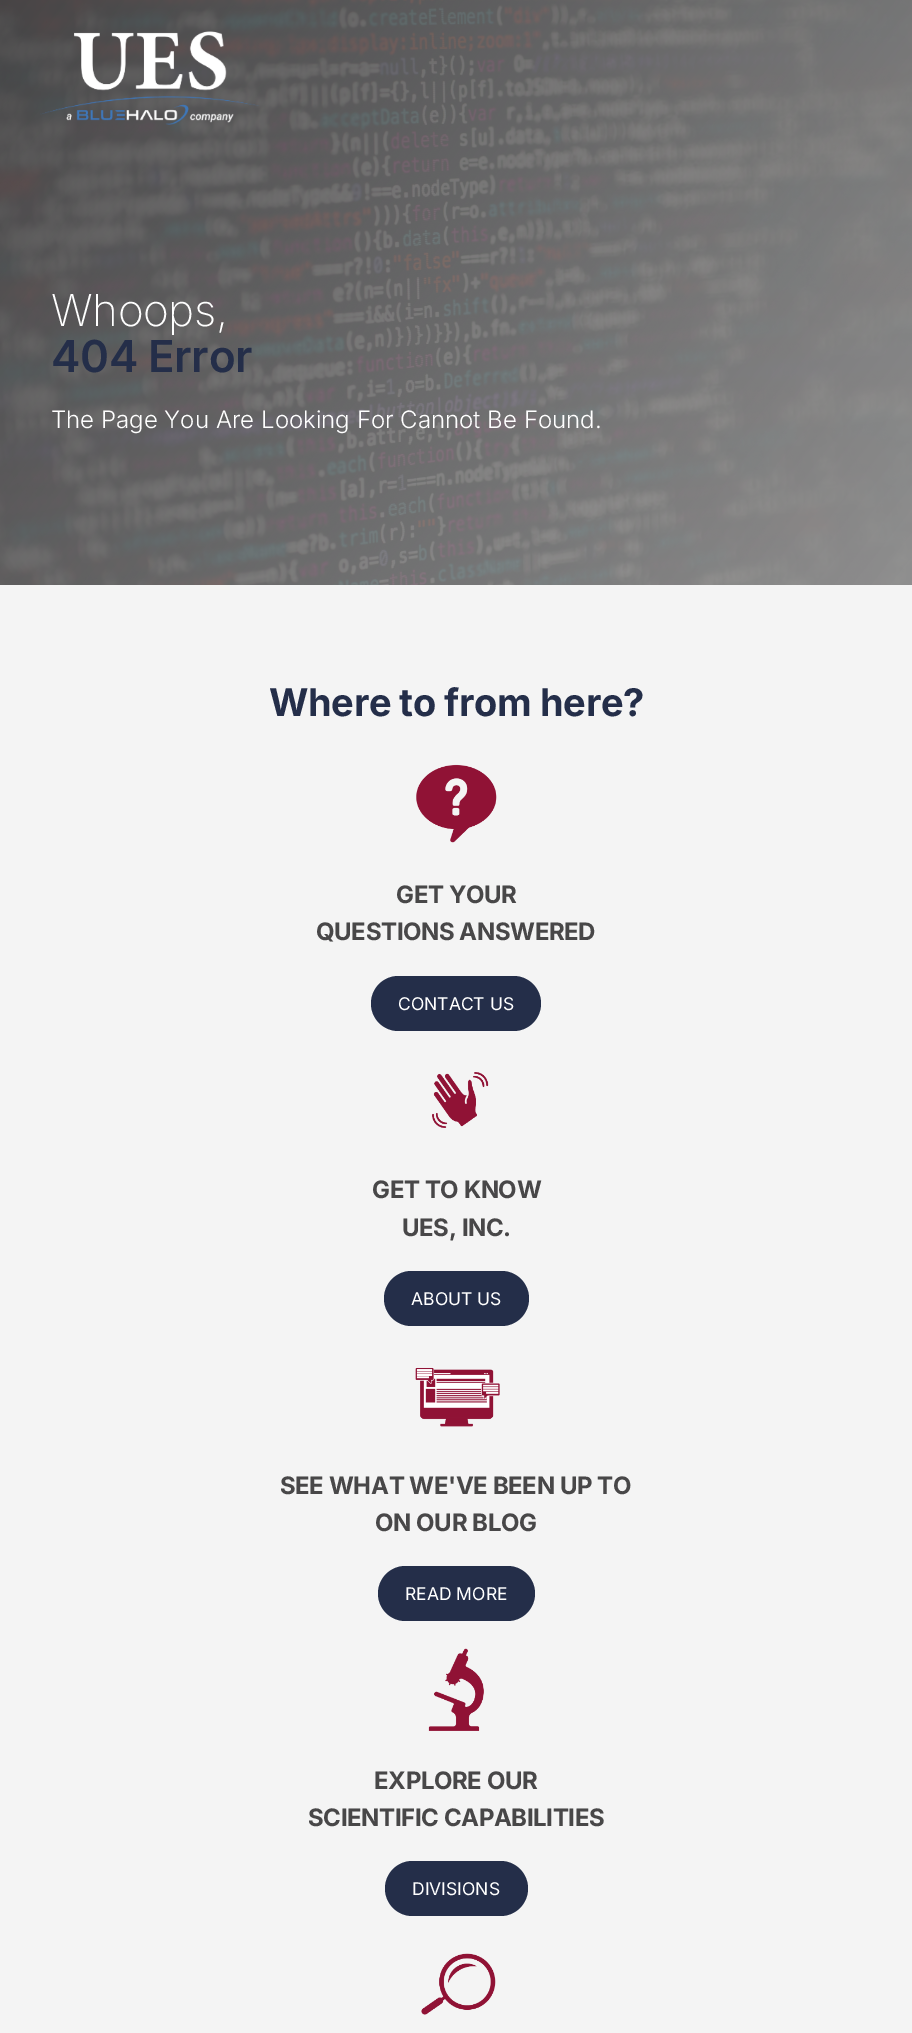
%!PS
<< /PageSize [912 2033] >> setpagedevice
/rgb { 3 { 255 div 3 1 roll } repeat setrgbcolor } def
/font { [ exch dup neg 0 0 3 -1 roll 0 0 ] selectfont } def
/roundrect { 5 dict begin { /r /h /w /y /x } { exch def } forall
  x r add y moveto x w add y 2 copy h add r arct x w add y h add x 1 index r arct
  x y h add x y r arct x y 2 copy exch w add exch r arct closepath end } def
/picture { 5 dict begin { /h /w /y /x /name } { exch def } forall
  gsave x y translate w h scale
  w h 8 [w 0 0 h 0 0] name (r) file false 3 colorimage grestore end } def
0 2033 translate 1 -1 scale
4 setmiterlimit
255 255 255 rgb
0 0 912 2033 rectfill
(img/2.rgb) 0 0 912 585 picture
(img/1.rgb) 40 31 219 94 picture
244 244 244 rgb
0 585 912 1448 rectfill
(img/3.rgb) 416 764 81 79 picture
36 46 73 rgb
371 976 170 55 27.5 roundrect fill
(img/4.rgb) 432 1072 57 56 picture
384 1271 145 55 27.5 roundrect fill
(img/5.rgb) 415 1367 85 60 picture
378 1566 157 55 27.5 roundrect fill
(img/6.rgb) 428 1648 56 83 picture
385 1861 143 55 27.5 roundrect fill
(img/7.rgb) 421 1953 75 62 picture
/Inter-ExtraLight 44 font
255 255 255 rgb
51 326 moveto -0.4 0 (Whoops,) ashow
/Inter-SemiBold 44 font
36 46 73 rgb
51 372 moveto -0.4 0 (404 Error) ashow
/Inter-Light 24 font
255 255 255 rgb
51 428 moveto (The Page You Are Looking For Cannot Be Found.) show
/Inter-Bold 38 font
36 46 73 rgb
269 716 moveto -0.4 0 (Where to from here?) ashow
/Inter-Bold 24 font
72 71 72 rgb
396 903 moveto -0.4 0 (GET YOUR) ashow
316 940 moveto -0.4 0 (QUESTIONS ANSWERED) ashow
/Inter-Regular 17.5 font
255 255 255 rgb
398 1010 moveto (CONTACT US) show
/Inter-Bold 24 font
72 71 72 rgb
372 1198 moveto -0.4 0 (GET TO KNOW) ashow
402 1236 moveto -0.4 0 (UES, INC.) ashow
/Inter-Regular 17.5 font
255 255 255 rgb
411 1305 moveto (ABOUT US) show
/Inter-Bold 24 font
72 71 72 rgb
280 1494 moveto -0.4 0 (SEE WHAT WE'VE BEEN UP TO) ashow
375 1531 moveto -0.4 0 (ON OUR BLOG) ashow
/Inter-Regular 17.5 font
255 255 255 rgb
405 1600 moveto (READ MORE) show
/Inter-Bold 24 font
72 71 72 rgb
374 1789 moveto -0.4 0 (EXPLORE OUR) ashow
308 1826 moveto -0.4 0 (SCIENTIFIC CAPABILITIES) ashow
/Inter-Regular 17.5 font
255 255 255 rgb
412 1895 moveto (DIVISIONS) show
showpage
